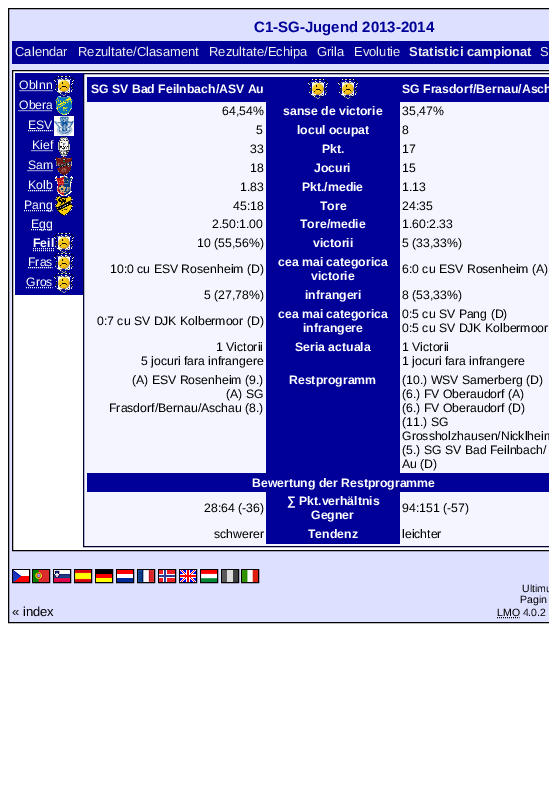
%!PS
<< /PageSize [549 802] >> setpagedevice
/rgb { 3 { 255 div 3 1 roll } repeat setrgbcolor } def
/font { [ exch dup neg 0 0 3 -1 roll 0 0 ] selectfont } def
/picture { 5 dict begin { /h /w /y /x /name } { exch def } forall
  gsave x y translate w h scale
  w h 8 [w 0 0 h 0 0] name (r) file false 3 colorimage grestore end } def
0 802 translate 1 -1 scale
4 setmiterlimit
255 255 255 rgb
0 0 549 802 rectfill
221 224 255 rgb
8.5 8.5 moveto 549.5 8.5 lineto 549.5 622.5 lineto 8.5 622.5 lineto closepath gsave fill grestore
0 0 0 rgb
stroke
0 0 153 rgb
12 41 537 23 rectfill
255 255 255 rgb
12.5 70.5 moveto 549.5 70.5 lineto 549.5 550.5 lineto 12.5 550.5 lineto closepath gsave fill grestore
0 0 0 rgb
stroke
0 0 153 rgb
15 73 68 222 rectfill
255 255 255 rgb
[1 1] 0 setdash
19.5 90.5 moveto 52.5 90.5 lineto stroke
(img/1.rgb) 54 76 20 20 picture
18.5 110.5 moveto 52.5 110.5 lineto stroke
(img/2.rgb) 55 96 18 19 picture
28 130.5 moveto 52.5 130.5 lineto stroke
(img/3.rgb) 54 116 20 20 picture
31.5 150.5 moveto 52.5 150.5 lineto stroke
(img/4.rgb) 58 137 12 19 picture
27.5 170.5 moveto 52.5 170.5 lineto stroke
(img/5.rgb) 55 156 17 20 picture
28 190.5 moveto 52.5 190.5 lineto stroke
(img/6.rgb) 55 176 18 20 picture
24 210.5 moveto 52.5 210.5 lineto stroke
(img/7.rgb) 55 196 18 20 picture
31 229.5 moveto 52.5 229.5 lineto stroke
33 250.5 moveto 54 250.5 lineto 33 248.5 moveto 54 248.5 lineto stroke
(img/1.rgb) 54 233 20 20 picture
28 267.5 moveto 52.5 267.5 lineto stroke
(img/1.rgb) 54 253 20 20 picture
26 287.5 moveto 52.5 287.5 lineto stroke
(img/1.rgb) 54 273 20 20 picture
245 245 255 rgb
83.5 73.5 moveto 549.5 73.5 lineto 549.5 546.5 lineto 83.5 546.5 lineto closepath gsave fill grestore
0 0 51 rgb
[] 0 setdash
stroke
0 0 153 rgb
87 77 462 25 rectfill
(img/1.rgb) 308 79 20 20 picture
(img/1.rgb) 338 79 20 20 picture
[
  [266 102 134 371 0 0 153]
  [87 473 462 19 0 0 153]
  [266 492 134 52 0 0 153]
] { aload pop rgb rectfill } forall
0 0 0 rgb
12.5 569.5 17 13 rectstroke
32.5 569.5 17 13 rectstroke
53.5 569.5 17 13 rectstroke
74.5 569.5 17 13 rectstroke
95.5 569.5 17 13 rectstroke
116.5 569.5 17 13 rectstroke
137.5 569.5 17 13 rectstroke
158.5 569.5 17 13 rectstroke
179.5 569.5 17 13 rectstroke
200.5 569.5 17 13 rectstroke
221.5 569.5 17 13 rectstroke
241.5 569.5 17 13 rectstroke
(img/8.rgb) 13 570 16 12 picture
(img/9.rgb) 33 570 16 12 picture
(img/10.rgb) 54 570 16 12 picture
(img/11.rgb) 75 570 16 12 picture
(img/12.rgb) 96 570 16 12 picture
(img/13.rgb) 117 570 16 12 picture
(img/14.rgb) 138 570 16 12 picture
(img/15.rgb) 159 570 16 12 picture
(img/16.rgb) 180 570 16 12 picture
(img/17.rgb) 201 570 16 12 picture
(img/18.rgb) 222 570 16 12 picture
(img/19.rgb) 242 570 16 12 picture
[1 1] 0 setdash
497 617.5 moveto 519.5 617.5 lineto stroke
/LiberationSans-Bold 15 font
0 0 153 rgb
254 32 moveto (C1-SG-Jugend 2013-2014) show
/LiberationSans-Regular 13 font
238 238 238 rgb
[
  [(Calendar) 15 56]
  [(Rezultate/Clasament) 78 56]
  [(Rezultate/Echipa) 209 56]
  [(Grila) 317 56]
  [(Evolutie) 354 56]
] { aload pop moveto show } forall
/LiberationSans-Bold 13 font
409 56 moveto (Statistici campionat) show
/LiberationSans-Regular 13 font
540 56 moveto (S) show
/LiberationSans-Regular 12.25 font
255 255 255 rgb
[
  [(ObInn) 19 89]
  [(Obera) 19 109]
  [(ESV) 28 129]
  [(Kief) 32 149]
  [(Sam) 28 169]
  [(Kolb) 28 189]
  [(Pang) 24 209]
  [(Egg) 31 228]
] { aload pop moveto show } forall
/LiberationSans-Bold 12.25 font
33 247 moveto (Feil) show
/LiberationSans-Regular 12.25 font
28 266 moveto (Fras) show
26 286 moveto (Gros) show
/LiberationSans-Bold 12.25 font
91 93 moveto (SG SV Bad Feilnbach/ASV Au) show
402 93 moveto (SG Frasdorf/Bernau/Asch) show
/LiberationSans-Regular 12.25 font
0 0 0 rgb
222 115 moveto (64,54%) show
/LiberationSans-Bold 12.25 font
255 255 255 rgb
283 115 moveto (sanse de victorie) show
/LiberationSans-Regular 12.25 font
0 0 0 rgb
402 115 moveto (35,47%) show
256 134 moveto (5) show
/LiberationSans-Bold 12.25 font
255 255 255 rgb
297 134 moveto (locul ocupat) show
/LiberationSans-Regular 12.25 font
0 0 0 rgb
402 134 moveto (8) show
250 153 moveto (33) show
/LiberationSans-Bold 12.25 font
255 255 255 rgb
322 153 moveto (Pkt.) show
/LiberationSans-Regular 12.25 font
0 0 0 rgb
402 153 moveto (17) show
250 172 moveto (18) show
/LiberationSans-Bold 12.25 font
255 255 255 rgb
314 172 moveto (Jocuri) show
/LiberationSans-Regular 12.25 font
0 0 0 rgb
402 172 moveto (15) show
240 191 moveto (1.83) show
/LiberationSans-Bold 12.25 font
255 255 255 rgb
302 191 moveto (Pkt./medie) show
/LiberationSans-Regular 12.25 font
0 0 0 rgb
402 191 moveto (1.13) show
233 210 moveto (45:18) show
/LiberationSans-Bold 12.25 font
255 255 255 rgb
320 210 moveto (Tore) show
/LiberationSans-Regular 12.25 font
0 0 0 rgb
402 210 moveto (24:35) show
212 228 moveto (2.50:1.00) show
/LiberationSans-Bold 12.25 font
255 255 255 rgb
300 228 moveto (Tore/medie) show
/LiberationSans-Regular 12.25 font
0 0 0 rgb
402 228 moveto (1.60:2.33) show
197 247 moveto (10 \(55,56%\)) show
/LiberationSans-Bold 12.25 font
255 255 255 rgb
313 247 moveto (victorii) show
/LiberationSans-Regular 12.25 font
0 0 0 rgb
402 247 moveto (5 \(33,33%\)) show
110 273 moveto (10:0 cu ESV Rosenheim \(D\)) show
/LiberationSans-Bold 12.25 font
255 255 255 rgb
278 266 moveto (cea mai categorica) show
311 280 moveto (victorie) show
/LiberationSans-Regular 12.25 font
0 0 0 rgb
402 273 moveto (6:0 cu ESV Rosenheim \(A\)) show
204 299 moveto (5 \(27,78%\)) show
/LiberationSans-Bold 12.25 font
255 255 255 rgb
305 299 moveto (infrangeri) show
/LiberationSans-Regular 12.25 font
0 0 0 rgb
402 299 moveto (8 \(53,33%\)) show
97 325 moveto (0:7 cu SV DJK Kolbermoor \(D\)) show
/LiberationSans-Bold 12.25 font
255 255 255 rgb
278 318 moveto (cea mai categorica) show
303 332 moveto (infrangere) show
/LiberationSans-Regular 12.25 font
0 0 0 rgb
[
  [(0:5 cu SV Pang \(D\)) 402 318]
  [(0:5 cu SV DJK Kolbermoor) 402 332]
  [(1 Victorii) 216 351]
  [(5 jocuri fara infrangere) 141 365]
] { aload pop moveto show } forall
/LiberationSans-Bold 12.25 font
255 255 255 rgb
295 351 moveto (Seria actuala) show
/LiberationSans-Regular 12.25 font
0 0 0 rgb
[
  [(1 Victorii) 402 351]
  [(1 jocuri fara infrangere) 402 365]
  [(\(A\) ESV Rosenheim \(9.\)) 132 384]
  [(\(A\) SG) 226 398]
  [(Frasdorf/Bernau/Aschau \(8.\)) 109 412]
] { aload pop moveto show } forall
/LiberationSans-Bold 12.25 font
255 255 255 rgb
289 384 moveto (Restprogramm) show
/LiberationSans-Regular 12.25 font
0 0 0 rgb
[
  [(\(10.\) WSV Samerberg \(D\)) 402 384]
  [(\(6.\) FV Oberaudorf \(A\)) 402 398]
  [(\(6.\) FV Oberaudorf \(D\)) 402 412]
  [(\(11.\) SG) 402 426]
  [(Grossholzhausen/Nicklheim) 402 440]
  [(\(5.\) SG SV Bad Feilnbach/) 402 454]
  [(Au \(D\)) 402 468]
] { aload pop moveto show } forall
/LiberationSans-Bold 12.25 font
255 255 255 rgb
252 487 moveto (Bewertung der Restprogramme) show
/LiberationSans-Regular 12.25 font
0 0 0 rgb
204 512 moveto (28:64 \(-36\)) show
/LiberationSans-Bold 12.25 font
255 255 255 rgb
287 505 moveto (∑ Pkt.verhältnis) show
311 519 moveto (Gegner) show
/LiberationSans-Regular 12.25 font
0 0 0 rgb
402 512 moveto (94:151 \(-57\)) show
214 538 moveto (schwerer) show
/LiberationSans-Bold 12.25 font
255 255 255 rgb
308 538 moveto (Tendenz) show
/LiberationSans-Regular 12.25 font
0 0 0 rgb
402 538 moveto (leichter) show
/LiberationSans-Regular 13 font
12 616 moveto (« index) show
/LiberationSans-Regular 10.5 font
[
  [(Ultimu) 522 592]
  [(Pagin) 520 603]
  [(LMO 4.0.2) 497 616]
] { aload pop moveto show } forall
showpage
